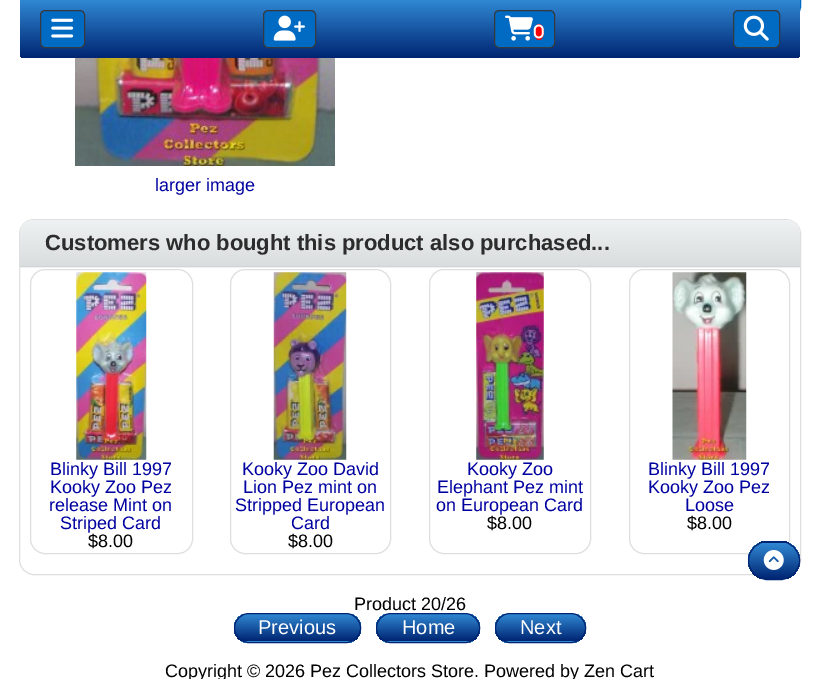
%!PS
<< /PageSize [819 679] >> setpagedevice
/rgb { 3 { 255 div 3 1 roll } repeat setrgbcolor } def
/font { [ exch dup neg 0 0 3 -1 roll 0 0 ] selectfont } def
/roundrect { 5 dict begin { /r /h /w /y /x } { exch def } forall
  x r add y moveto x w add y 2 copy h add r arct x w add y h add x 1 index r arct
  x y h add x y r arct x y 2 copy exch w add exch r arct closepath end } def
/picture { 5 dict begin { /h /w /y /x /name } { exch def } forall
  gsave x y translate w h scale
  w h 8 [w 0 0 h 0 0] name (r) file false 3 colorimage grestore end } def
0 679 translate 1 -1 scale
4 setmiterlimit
255 255 255 rgb
0 0 819 679 rectfill
1 107 196 rgb
429.5 -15.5 371 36 14.5 roundrect stroke
gsave 20 0 moveto 800 0 lineto 800 53 lineto 800 56 798 58 795 58 curveto 25 58 lineto 22 58 20 56 20 53 curveto closepath clip newpath
<< /ShadingType 2 /ColorSpace /DeviceRGB /Coords [410 0 410 58] /Extend [true true] /Function << /FunctionType 2 /Domain [0 1] /C0 [0.188 0.533 0.827] /C1 [0 0.145 0.447] /N 1 >> >> shfill grestore
40.5 10.5 44 37 4.5 roundrect gsave fill grestore
52 58 64 rgb
stroke
(img/1.rgb) 51 18 23 20 picture
1 107 196 rgb
263.5 10.5 52 37 4.5 roundrect gsave fill grestore
52 58 64 rgb
stroke
(img/2.rgb) 273 15 32 26 picture
1 107 196 rgb
494.5 10.5 60 37 4.5 roundrect gsave fill grestore
52 58 64 rgb
stroke
(img/3.rgb) 505 15 28 26 picture
255 0 0 rgb
539 24 moveto 542 24 544 27.5 544 32 curveto 544 36.5 542 40 539 40 curveto 536 40 534 36.5 534 32 curveto 534 27.5 536 24 539 24 curveto closepath fill
(img/4.rgb) 533 24 11 15 picture
1 107 196 rgb
733.5 10.5 46 37 4.5 roundrect gsave fill grestore
52 58 64 rgb
stroke
(img/5.rgb) 743 15 26 26 picture
(img/6.rgb) 75 58 260 108 picture
223 223 223 rgb
19.5 219.5 781 355 14.5 roundrect stroke
gsave 34 220 moveto 786 220 lineto 793.5 220 800 226.5 800 234 curveto 800 266 lineto 20 266 lineto 20 234 lineto 20 226.5 26.5 220 34 220 curveto closepath clip newpath
<< /ShadingType 2 /ColorSpace /DeviceRGB /Coords [410 220 410 266] /Extend [true true] /Function << /FunctionType 2 /Domain [0 1] /C0 [0.933 0.949 0.949] /C1 [0.851 0.867 0.867] /N 1 >> >> shfill grestore
gsave 20 267 moveto 800 267 lineto 800 268 lineto 20 268 lineto closepath clip newpath
<< /ShadingType 2 /ColorSpace /DeviceRGB /Coords [410 266 410 313] /Extend [true true] /Function << /FunctionType 2 /Domain [0 1] /C0 [0.933 0.949 0.949] /C1 [0.851 0.867 0.867] /N 1 >> >> shfill grestore
208 212 212 rgb
20 266 780 1 rectfill
223 223 223 rgb
30.5 269.5 162 284 14.5 roundrect stroke
(img/7.rgb) 76 272 71 188 picture
230.5 269.5 160 284 14.5 roundrect stroke
(img/8.rgb) 273 272 74 188 picture
429.5 269.5 161 284 14.5 roundrect stroke
(img/9.rgb) 476 272 68 188 picture
629.5 269.5 160 284 14.5 roundrect stroke
(img/10.rgb) 672 272 75 188 picture
gsave
234 613 127 30 15 roundrect clip newpath
gsave 234 614 moveto 361 614 lineto 361 641 lineto 234 641 lineto closepath clip newpath
<< /ShadingType 2 /ColorSpace /DeviceRGB /Coords [298 614 298 641] /Extend [true true] /Function << /FunctionType 2 /Domain [0 1] /C0 [0.188 0.533 0.827] /C1 [0 0.145 0.447] /N 1 >> >> shfill grestore
gsave 234 641 moveto 361 641 lineto 361 643 lineto 234 643 lineto closepath clip newpath
<< /ShadingType 2 /ColorSpace /DeviceRGB /Coords [298 641 298 669] /Extend [true true] /Function << /FunctionType 2 /Domain [0 1] /C0 [0.188 0.533 0.827] /C1 [0 0.145 0.447] /N 1 >> >> shfill grestore
grestore
0 37 114 rgb
234.5 613.5 126 29 14.5 roundrect stroke
gsave
376 613 104 30 15 roundrect clip newpath
gsave 376 614 moveto 480 614 lineto 480 641 lineto 376 641 lineto closepath clip newpath
<< /ShadingType 2 /ColorSpace /DeviceRGB /Coords [428 614 428 641] /Extend [true true] /Function << /FunctionType 2 /Domain [0 1] /C0 [0.188 0.533 0.827] /C1 [0 0.145 0.447] /N 1 >> >> shfill grestore
gsave 376 641 moveto 480 641 lineto 480 643 lineto 376 643 lineto closepath clip newpath
<< /ShadingType 2 /ColorSpace /DeviceRGB /Coords [428 641 428 669] /Extend [true true] /Function << /FunctionType 2 /Domain [0 1] /C0 [0.188 0.533 0.827] /C1 [0 0.145 0.447] /N 1 >> >> shfill grestore
grestore
376.5 613.5 103 29 14.5 roundrect stroke
gsave
495 613 91 30 15 roundrect clip newpath
gsave 495 614 moveto 586 614 lineto 586 641 lineto 495 641 lineto closepath clip newpath
<< /ShadingType 2 /ColorSpace /DeviceRGB /Coords [541 614 541 641] /Extend [true true] /Function << /FunctionType 2 /Domain [0 1] /C0 [0.188 0.533 0.827] /C1 [0 0.145 0.447] /N 1 >> >> shfill grestore
gsave 495 641 moveto 586 641 lineto 586 643 lineto 495 643 lineto closepath clip newpath
<< /ShadingType 2 /ColorSpace /DeviceRGB /Coords [541 641 541 669] /Extend [true true] /Function << /FunctionType 2 /Domain [0 1] /C0 [0.188 0.533 0.827] /C1 [0 0.145 0.447] /N 1 >> >> shfill grestore
grestore
495.5 613.5 90 29 14.5 roundrect stroke
gsave
748 541 52 39 19.5 roundrect clip newpath
gsave 759 541 moveto 789 541 lineto 789 543 lineto 759 543 lineto closepath clip newpath
<< /ShadingType 2 /ColorSpace /DeviceRGB /Coords [774 506 774 543] /Extend [true true] /Function << /FunctionType 2 /Domain [0 1] /C0 [0.188 0.533 0.827] /C1 [0 0.145 0.447] /N 1 >> >> shfill grestore
gsave 748 543 moveto 800 543 lineto 800 579 lineto 748 579 lineto closepath clip newpath
<< /ShadingType 2 /ColorSpace /DeviceRGB /Coords [774 543 774 579] /Extend [true true] /Function << /FunctionType 2 /Domain [0 1] /C0 [0.188 0.533 0.827] /C1 [0 0.145 0.447] /N 1 >> >> shfill grestore
grestore
748.5 541.5 51 38 19 roundrect stroke
(img/11.rgb) 763 550 21 20 picture
/LiberationSans-Regular 18 font
0 0 160 rgb
155 191 moveto (larger image) show
/LiberationSans-Bold 22 font
44 44 44 rgb
45 250 moveto (Customers who bought this product also purchased...) show
/LiberationSans-Regular 18 font
0 0 160 rgb
[
  [(Blinky Bill 1997) 50 475]
  [(Kooky Zoo Pez) 50 493]
  [(release Mint on) 49 511]
  [(Striped Card) 60 529]
] { aload pop moveto show } forall
0 0 0 rgb
88 547 moveto ($8.00) show
0 0 160 rgb
[
  [(Kooky Zoo David) 242 475]
  [(Lion Pez mint on) 243 493]
  [(Stripped European) 235 511]
  [(Card) 291 529]
] { aload pop moveto show } forall
0 0 0 rgb
288 547 moveto ($8.00) show
0 0 160 rgb
[
  [(Kooky Zoo) 467 475]
  [(Elephant Pez mint) 437 493]
  [(on European Card) 436 511]
] { aload pop moveto show } forall
0 0 0 rgb
487 529 moveto ($8.00) show
0 0 160 rgb
[
  [(Blinky Bill 1997) 648 475]
  [(Kooky Zoo Pez) 648 493]
  [(Loose) 685 511]
] { aload pop moveto show } forall
0 0 0 rgb
687 529 moveto ($8.00) show
354 610 moveto (Product 20/26) show
/LiberationSans-Regular 20 font
255 255 255 rgb
[
  [(Previous) 258 634]
  [(Home) 402 634]
  [(Next) 520 634]
] { aload pop moveto show } forall
/LiberationSans-Regular 18 font
0 0 0 rgb
165 677 moveto (Copyright © 2026 Pez Collectors Store. Powered by Zen Cart) show
showpage
